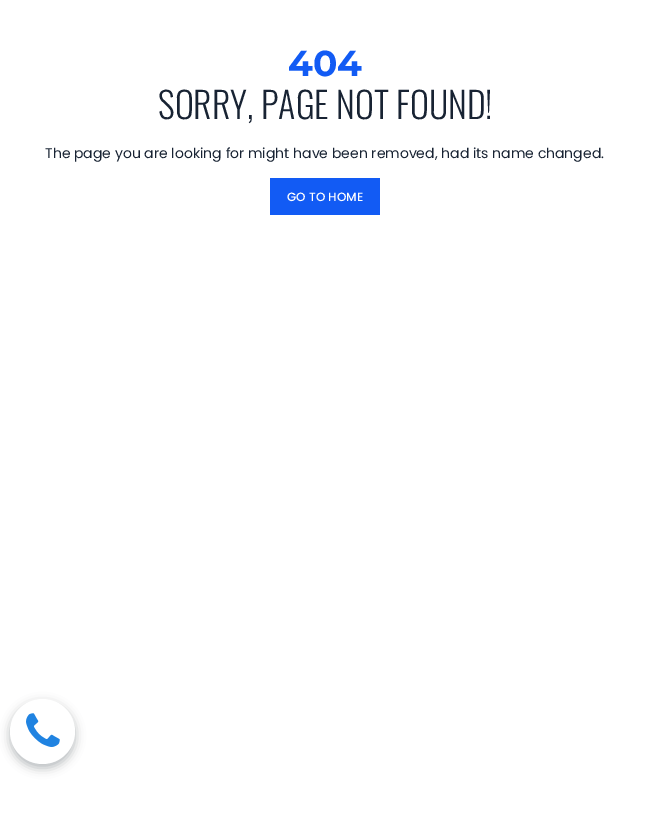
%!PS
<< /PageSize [650 814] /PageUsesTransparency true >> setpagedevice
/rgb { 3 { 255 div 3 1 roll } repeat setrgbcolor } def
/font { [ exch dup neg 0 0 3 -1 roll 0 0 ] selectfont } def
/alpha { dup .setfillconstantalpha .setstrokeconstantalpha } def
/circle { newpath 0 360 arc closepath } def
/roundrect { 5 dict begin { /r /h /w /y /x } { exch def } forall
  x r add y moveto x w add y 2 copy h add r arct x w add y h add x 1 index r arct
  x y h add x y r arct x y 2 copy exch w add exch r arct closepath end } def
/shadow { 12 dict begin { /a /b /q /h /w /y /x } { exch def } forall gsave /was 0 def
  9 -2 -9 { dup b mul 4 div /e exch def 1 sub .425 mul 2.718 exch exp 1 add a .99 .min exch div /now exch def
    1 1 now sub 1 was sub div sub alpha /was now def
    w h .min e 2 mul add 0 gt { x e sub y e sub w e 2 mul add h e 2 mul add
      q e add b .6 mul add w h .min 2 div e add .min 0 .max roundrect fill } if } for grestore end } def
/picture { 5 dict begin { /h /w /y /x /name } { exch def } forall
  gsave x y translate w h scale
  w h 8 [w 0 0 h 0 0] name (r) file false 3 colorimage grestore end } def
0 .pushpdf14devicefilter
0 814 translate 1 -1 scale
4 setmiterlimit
255 255 255 rgb
0 0 650 814 rectfill
18 91 244 rgb
270 178 110 37 rectfill
46 58 70 rgb
10 703 65 65 32.5 5 0.35 shadow
255 255 255 rgb
42.5 731.5 32.5 circle fill
(img/1.rgb) 26 713 34 34 picture
/Montserrat-Bold 36 font
18 91 244 rgb
288 76 moveto (404) show
/Oswald-Light 36 font
24 35 51 rgb
158 119 moveto (SORRY, PAGE NOT FOUND!) show
/Poppins-Regular 14 font
45 158 moveto (The page you are looking for might have been removed, had its name changed.) show
/Poppins-Medium 12 font
255 255 255 rgb
287 201 moveto (GO TO HOME) show
.poppdf14devicefilter showpage
